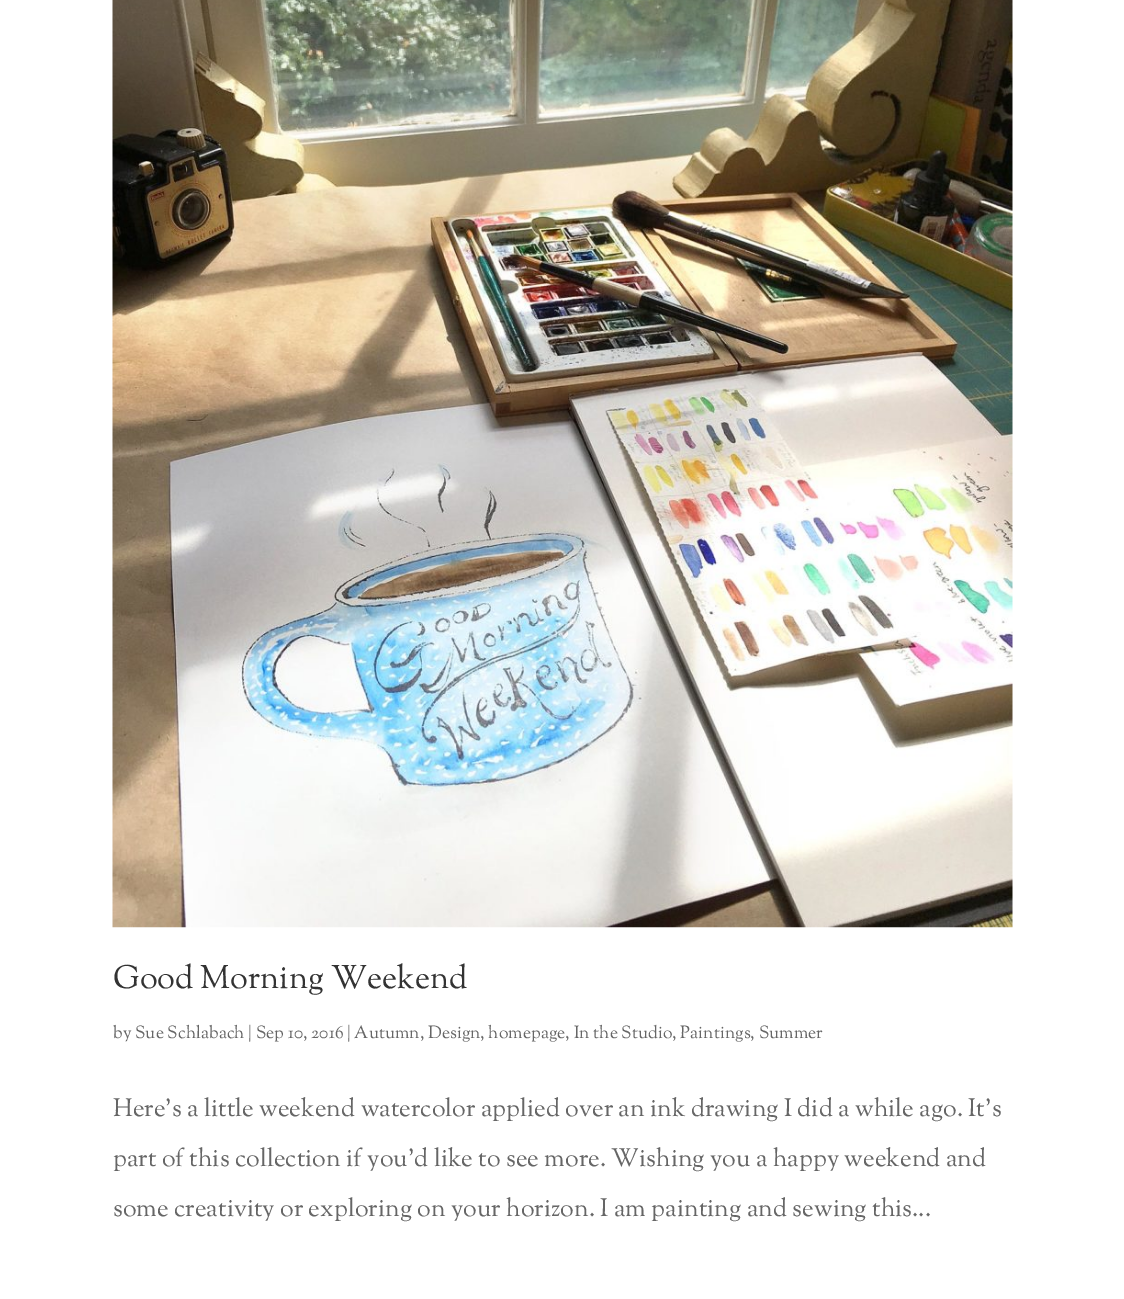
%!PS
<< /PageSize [1124 1299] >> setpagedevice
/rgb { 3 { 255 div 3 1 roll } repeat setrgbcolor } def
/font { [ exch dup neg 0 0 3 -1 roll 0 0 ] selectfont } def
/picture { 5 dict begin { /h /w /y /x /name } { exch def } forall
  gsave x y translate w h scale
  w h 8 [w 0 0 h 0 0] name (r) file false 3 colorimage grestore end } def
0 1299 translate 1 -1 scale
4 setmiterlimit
255 255 255 rgb
0 0 1124 1299 rectfill
(img/1.rgb) 112 0 901 928 picture
/SortsMillGoudy-Regular 32.5 font
51 51 51 rgb
113 988 moveto (Good Morning Weekend) show
/SortsMillGoudy-Regular 17.5 font
102 102 102 rgb
113 1038 moveto (by Sue Schlabach | Sep 10, 2016 | Autumn, Design, homepage, In the Studio, Paintings, Summer) show
/SortsMillGoudy-Regular 25 font
[
  [(Here’s a little weekend watercolor applied over an ink drawing I did a while ago. It’s) 113 1116]
  [(part of this collection if you’d like to see more. Wishing you a happy weekend and) 113 1166]
  [(some creativity or exploring on your horizon. I am painting and sewing this...) 113 1216]
] { aload pop moveto show } forall
showpage
